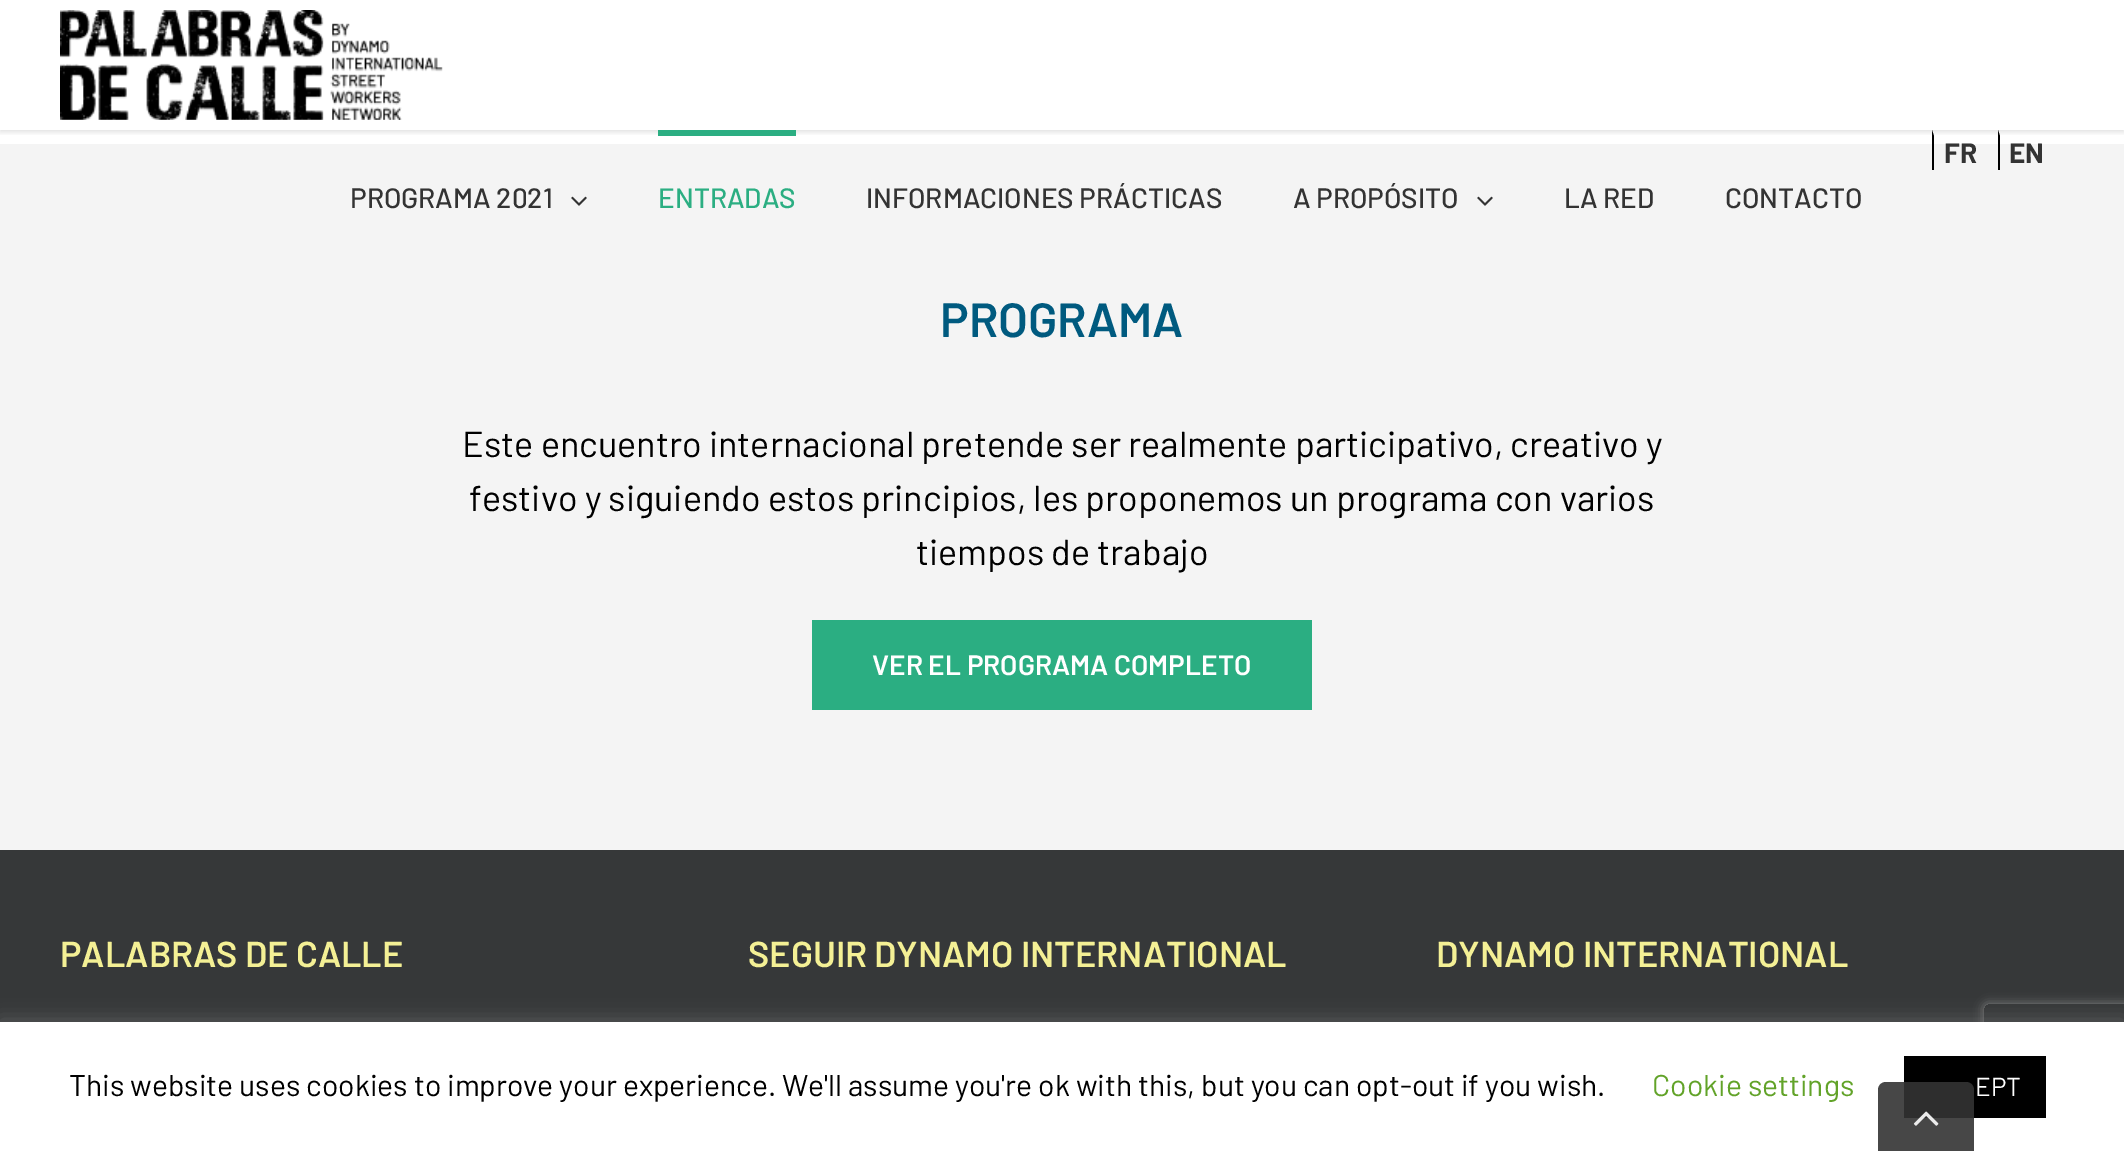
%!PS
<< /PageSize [2124 1151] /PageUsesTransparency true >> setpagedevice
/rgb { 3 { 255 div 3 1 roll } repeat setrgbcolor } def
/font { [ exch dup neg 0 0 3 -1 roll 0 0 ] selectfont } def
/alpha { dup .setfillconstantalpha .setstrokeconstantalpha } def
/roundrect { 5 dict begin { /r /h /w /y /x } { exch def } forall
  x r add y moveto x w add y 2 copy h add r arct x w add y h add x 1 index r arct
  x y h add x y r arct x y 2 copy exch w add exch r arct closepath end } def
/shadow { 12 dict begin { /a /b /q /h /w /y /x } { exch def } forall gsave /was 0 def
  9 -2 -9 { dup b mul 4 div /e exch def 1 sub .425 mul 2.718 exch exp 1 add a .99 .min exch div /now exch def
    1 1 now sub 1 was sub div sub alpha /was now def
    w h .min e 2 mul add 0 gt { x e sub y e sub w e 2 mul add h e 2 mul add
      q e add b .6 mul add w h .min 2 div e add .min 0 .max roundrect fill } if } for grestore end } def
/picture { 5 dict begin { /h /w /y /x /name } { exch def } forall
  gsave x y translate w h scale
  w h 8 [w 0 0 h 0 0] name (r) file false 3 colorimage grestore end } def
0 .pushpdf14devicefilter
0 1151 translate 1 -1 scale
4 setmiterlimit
255 255 255 rgb
0 0 2124 1151 rectfill
gsave
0 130 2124 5 rectclip
0 0 0 rgb
0 2 2124 130 0 3 0.12 shadow
grestore
(img/1.rgb) 60 10 383 110 picture
244 244 244 rgb
0 144 2124 706 rectfill
0 0 0 rgb
1932 170 moveto 1932 130 lineto 1934 136 lineto 1934 170 lineto closepath fill
1998 170 moveto 1998 130 lineto 2000 136 lineto 2000 170 lineto closepath fill
(img/2.rgb) 571 196 16 10 picture
43 174 130 rgb
658 130 138 6 rectfill
(img/2.rgb) 1477 196 16 10 picture
812 620 500 90 rectfill
54 56 57 rgb
0 850 2124 172 rectfill
172 171 171 rgb
0 1020 2124 130 0 10 0.3 shadow
gsave
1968 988 moveto 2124 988 lineto 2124 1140 lineto 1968 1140 lineto closepath 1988 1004 moveto 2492 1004 lineto 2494 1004 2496 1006 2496 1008 curveto 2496 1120 lineto 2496 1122 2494 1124 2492 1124 curveto 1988 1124 lineto 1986 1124 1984 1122 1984 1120 curveto 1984 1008 lineto 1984 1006 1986 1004 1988 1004 curveto closepath eoclip newpath
128 128 128 rgb
1984 1004 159 120 4 5 1 shadow
grestore
255 255 255 rgb
0 1022 2124 129 rectfill
0 0 0 rgb
1904 1056 142 62 rectfill
0.9 alpha
51 51 51 rgb
1886 1082 moveto 1966 1082 lineto 1970.5 1082 1974 1085.5 1974 1090 curveto 1974 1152 lineto 1878 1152 lineto 1878 1090 lineto 1878 1085.5 1881.5 1082 1886 1082 curveto closepath fill
1 alpha
(img/3.rgb) 1913 1111 26 15 picture
/Barlow-Bold 28 font
1944 163 moveto (FR) show
2009 163 moveto (EN) show
/Barlow-Medium 28 font
350 208 moveto (PROGRAMA 2021) show
43 174 130 rgb
658 208 moveto (ENTRADAS) show
51 51 51 rgb
[
  [(INFORMACIONES PRÁCTICAS) 866 208]
  [(A PROPÓSITO) 1293 208]
  [(LA RED) 1564 208]
  [(CONTACTO) 1725 208]
] { aload pop moveto show } forall
/Barlow-SemiBold 48 font
0 90 127 rgb
940 337 moveto (PROGRAMA) show
/Barlow-Regular 36 font
0 0 0 rgb
[
  [(Este encuentro internacional pretende ser realmente participativo, creativo y) 462 457]
  [(festivo y siguiendo estos principios, les proponemos un programa con varios) 469 511]
  [(tiempos de trabajo) 916 565]
] { aload pop moveto show } forall
/Barlow-SemiBold 28 font
255 255 255 rgb
872 675 moveto (VER EL PROGRAMA COMPLETO) show
/Barlow-SemiBold 36 font
244 240 149 rgb
[
  [(PALABRAS DE CALLE) 60 967]
  [(SEGUIR DYNAMO INTERNATIONAL) 748 967]
  [(DYNAMO INTERNATIONAL) 1436 967]
] { aload pop moveto show } forall
/Barlow-Regular 30 font
0 0 0 rgb
69 1096 moveto (This website uses cookies to improve your experience. We'll assume you're ok with this, but you can opt-out if you wish.) show
98 163 41 rgb
1652 1096 moveto (Cookie settings) show
/Barlow-Regular 26 font
255 255 255 rgb
1975 1096 moveto (EPT) show
.poppdf14devicefilter showpage
